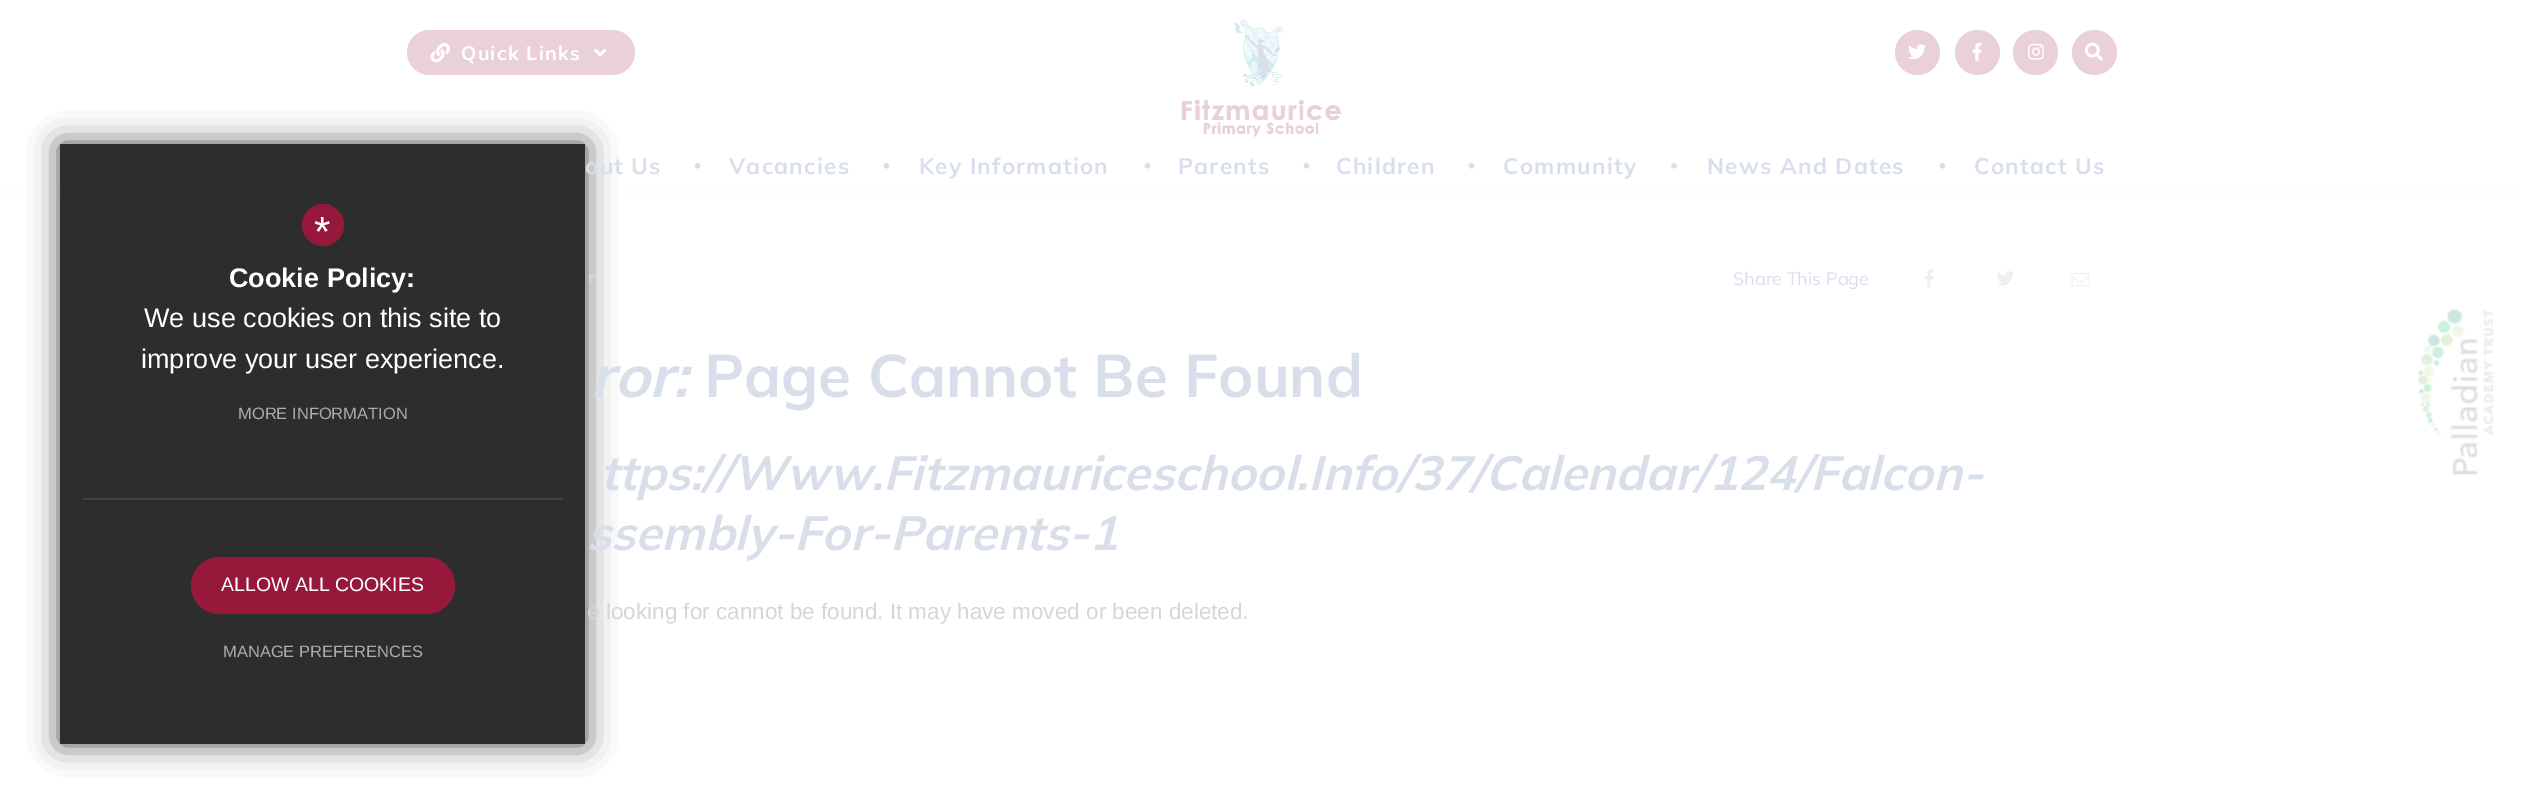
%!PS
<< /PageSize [2522 804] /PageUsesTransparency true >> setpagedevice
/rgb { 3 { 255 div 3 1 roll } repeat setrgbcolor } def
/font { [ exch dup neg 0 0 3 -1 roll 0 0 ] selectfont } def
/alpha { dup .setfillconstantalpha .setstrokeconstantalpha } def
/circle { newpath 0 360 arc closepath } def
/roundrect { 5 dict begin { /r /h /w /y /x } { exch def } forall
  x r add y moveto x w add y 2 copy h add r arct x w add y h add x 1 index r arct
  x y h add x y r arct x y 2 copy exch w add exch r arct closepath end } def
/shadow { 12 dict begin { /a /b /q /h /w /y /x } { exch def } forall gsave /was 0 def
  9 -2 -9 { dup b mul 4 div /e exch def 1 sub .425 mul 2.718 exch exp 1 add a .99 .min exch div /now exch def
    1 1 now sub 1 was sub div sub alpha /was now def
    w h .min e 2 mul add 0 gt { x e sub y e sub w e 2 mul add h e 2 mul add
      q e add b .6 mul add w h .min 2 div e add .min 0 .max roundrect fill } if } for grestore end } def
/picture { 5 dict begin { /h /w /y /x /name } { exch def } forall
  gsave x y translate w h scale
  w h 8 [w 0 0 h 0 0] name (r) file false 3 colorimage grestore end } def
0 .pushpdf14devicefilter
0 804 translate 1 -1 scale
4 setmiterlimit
255 255 255 rgb
0 0 2522 804 rectfill
234 209 216 rgb
407 30 228 45 22.5 roundrect fill
(img/1.rgb) 430 42 20 21 picture
(img/2.rgb) 594 48 13 9 picture
(img/3.rgb) 1181 19 160 118 picture
1917.5 52.5 22.5 circle fill
(img/4.rgb) 1908 44 18 16 picture
1977.5 52.5 22.5 circle fill
(img/5.rgb) 1972 42 10 19 picture
2035.5 52.5 22.5 circle fill
(img/6.rgb) 2028 43 16 17 picture
2094.5 52.5 22.5 circle fill
(img/7.rgb) 2085 42 18 19 picture
(img/8.rgb) 694 162 7 7 picture
(img/8.rgb) 883 162 7 7 picture
(img/8.rgb) 1144 162 7 7 picture
(img/8.rgb) 1303 162 7 7 picture
(img/8.rgb) 1468 162 7 7 picture
(img/9.rgb) 1671 162 6 7 picture
(img/8.rgb) 1939 162 7 7 picture
252 252 252 rgb
0 191 2522 2 rectfill
0 0 0 rgb
60 144 525 600 0 15 0.7 shadow
45 45 45 rgb
60 144 525 600 rectfill
66 66 66 rgb
83 498 480 2 rectfill
150 25 59 rgb
323 225 21 circle fill
191 557 264 57 28.5 roundrect fill
(img/10.rgb) 1924 269 10 19 picture
(img/11.rgb) 1997 271 18 15 picture
(img/12.rgb) 2071 273 19 14 picture
(img/13.rgb) 2418 309 76 166 picture
/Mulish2-ExtraLight 19.5 font
255 255 255 rgb
461 60 moveto 1.25 0 (Quick Links) ashow
/Mulish2-ExtraLight 22.5 font
216 223 235 rgb
585 174 moveto 1.25 0 (out Us) ashow
729 174 moveto 1.25 0 (Vacancies) ashow
919 174 moveto 1.25 0 (Key Information) ashow
1178 174 moveto 1.25 0 (Parents) ashow
1336 174 moveto 1.25 0 (Children) ashow
1503 174 moveto 1.25 0 (Community) ashow
1707 174 moveto 1.25 0 (News And Dates) ashow
1974 174 moveto 1.25 0 (Contact Us) ashow
/LiberationSans-Regular 42 font
255 255 255 rgb
314 246 moveto (*) show
/LiberationSans-Bold 27 font
229 287 moveto (Cookie Policy:) show
/LiberationSans-Regular 27 font
144 327 moveto (We use cookies on this site to) show
141 368 moveto (improve your user experience.) show
/LiberationSans-Regular 16.5 font
171 171 171 rgb
238 419 moveto (MORE INFORMATION) show
/LiberationSans-Regular 19.5 font
255 255 255 rgb
221 591 moveto (ALLOW ALL COOKIES) show
/LiberationSans-Regular 16.5 font
171 171 171 rgb
223 657 moveto (MANAGE PREFERENCES) show
/Mulish-ExtraLight 18 font
219 221 221 rgb
588 284 moveto (r) show
216 223 235 rgb
1733 285 moveto (Share This Page) show
/Mulish-ExtraLightItalic 60 font
590 397 moveto (ror:) show
/Mulish2-ExtraLight 60 font
704 397 moveto (Page Cannot Be Found) show
/Mulish-ExtraLightItalic 48 font
600 490 moveto (ttps://Www.Fitzmauriceschool.Info/37/Calendar/124/Falcon-) show
587 550 moveto (ssembly-For-Parents-1) show
/LiberationSans-Regular 22.5 font
214 214 214 rgb
587 619 moveto (e looking for cannot be found. It may have moved or been deleted.) show
.poppdf14devicefilter showpage
